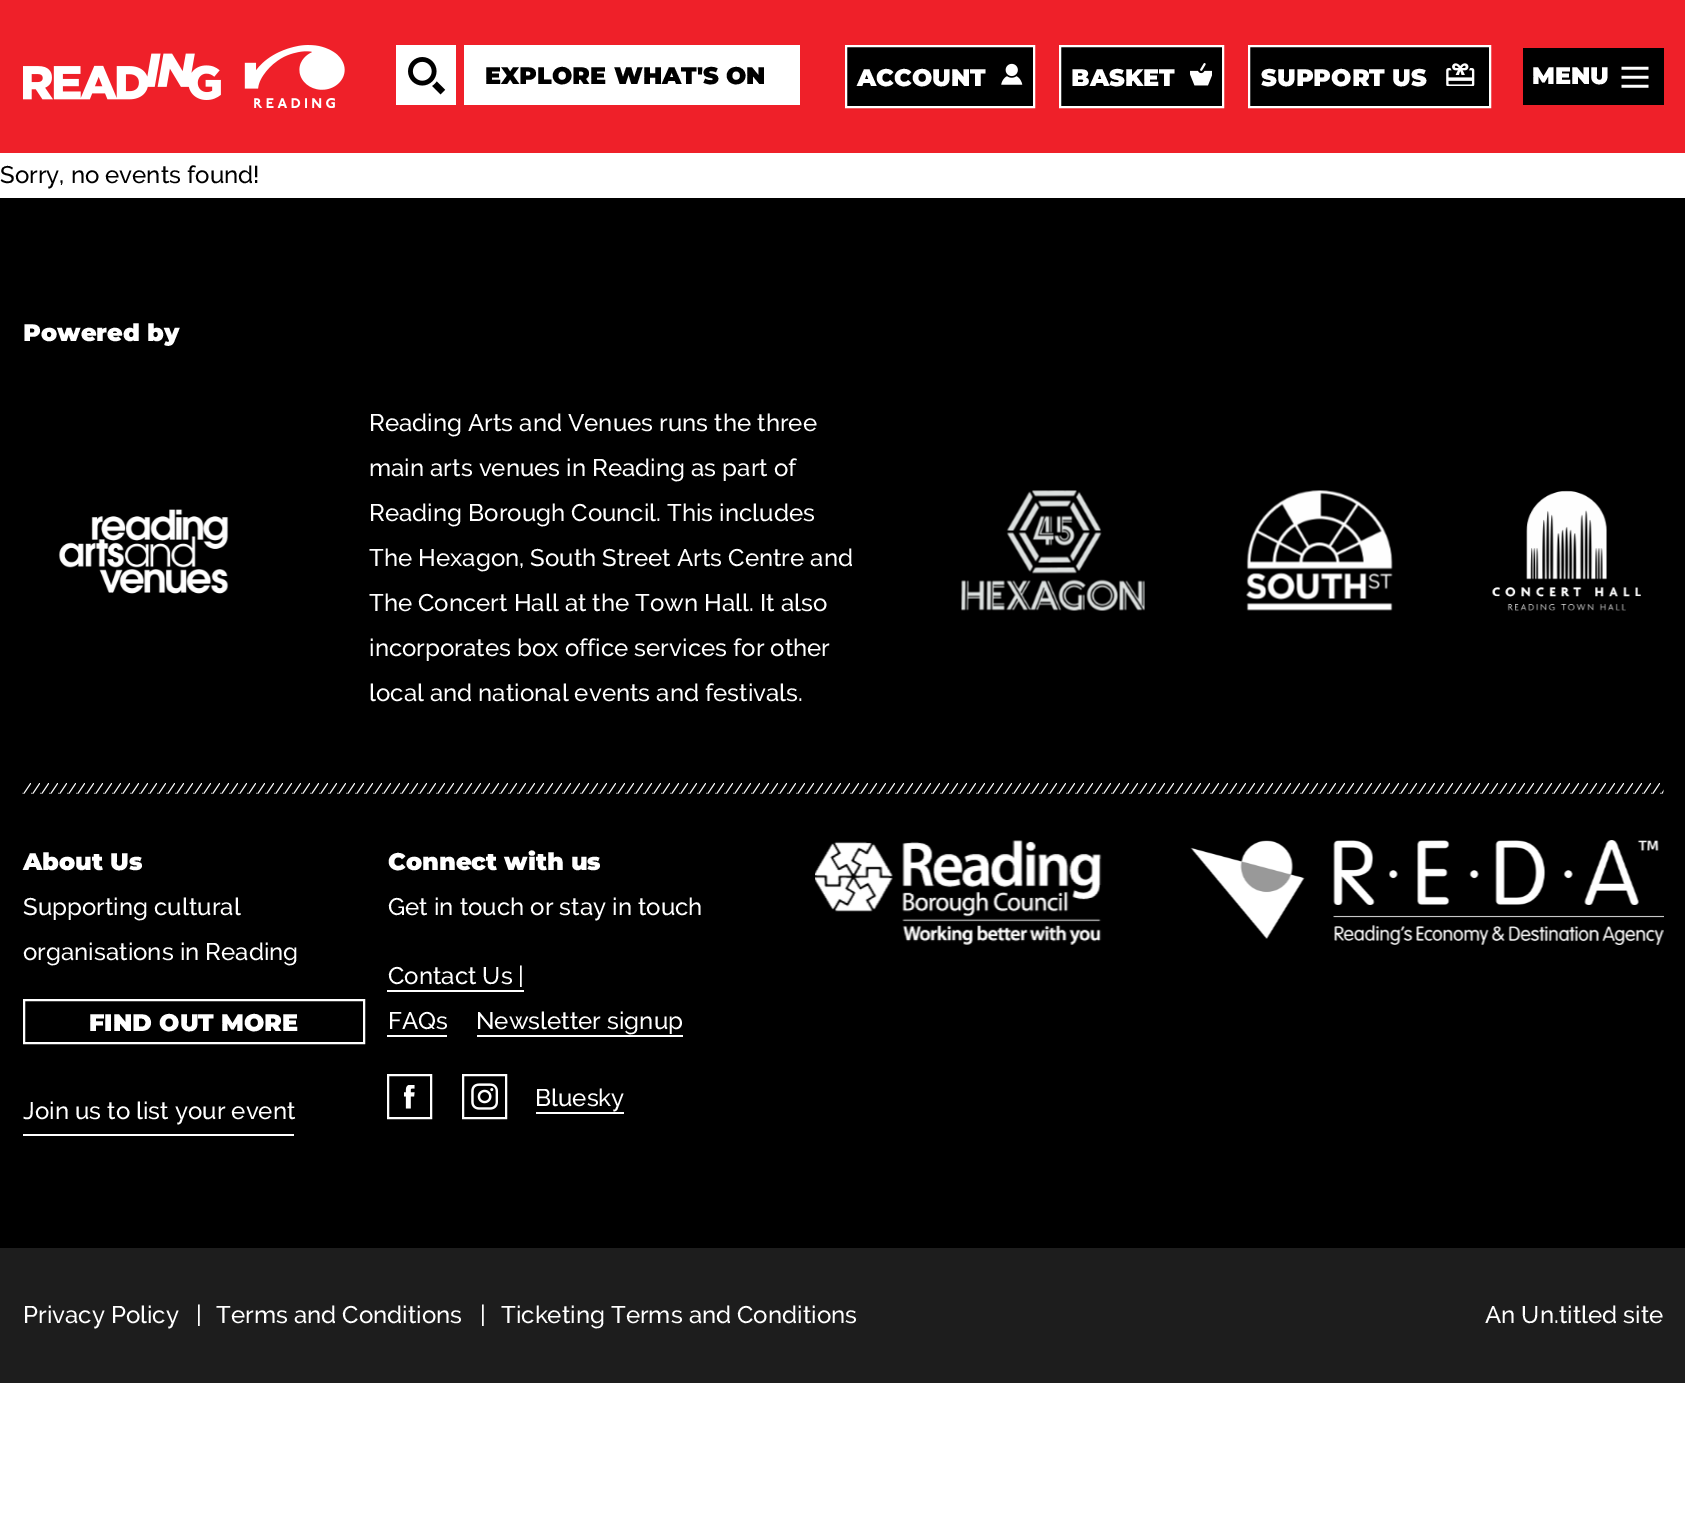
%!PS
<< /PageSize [1685 1513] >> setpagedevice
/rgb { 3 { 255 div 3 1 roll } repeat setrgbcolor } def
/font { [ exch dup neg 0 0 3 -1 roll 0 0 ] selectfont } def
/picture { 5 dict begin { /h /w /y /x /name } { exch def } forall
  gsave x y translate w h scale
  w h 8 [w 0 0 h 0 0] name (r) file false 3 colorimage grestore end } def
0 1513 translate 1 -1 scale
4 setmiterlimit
255 255 255 rgb
0 0 1685 1513 rectfill
239 32 41 rgb
0 0 1685 153 rectfill
(img/1.rgb) 23 53 198 47 picture
(img/2.rgb) 244 45 101 63 picture
255 255 255 rgb
396 45 60 60 rectfill
(img/3.rgb) 408 57 38 38 picture
464 45 336 60 rectfill
0 0 0 rgb
846 46 moveto 1034 46 lineto 1034 107 lineto 846 107 lineto closepath gsave fill grestore
255 255 255 rgb
2 setlinewidth
stroke
(img/4.rgb) 1001 63 22 22 picture
0 0 0 rgb
1060 46 moveto 1223 46 lineto 1223 107 lineto 1060 107 lineto closepath gsave fill grestore
255 255 255 rgb
stroke
(img/5.rgb) 1190 63 22 23 picture
0 0 0 rgb
1249 46 moveto 1490 46 lineto 1490 107 lineto 1249 107 lineto closepath gsave fill grestore
255 255 255 rgb
stroke
(img/6.rgb) 1446 63 29 23 picture
0 0 0 rgb
1523 48 141 57 rectfill
(img/7.rgb) 1621 66 28 22 picture
0 198 1685 1050 rectfill
(img/8.rgb) 58 509 171 85 picture
(img/9.rgb) 961 490 184 121 picture
(img/10.rgb) 1246 490 147 121 picture
(img/11.rgb) 1492 490 149 121 picture
(img/12.rgb) 22 783 1642 11 picture
255 255 255 rgb
24 1000 340 43 rectstroke
[
  [23 1134 271 2 255 255 255]
  [387 990 137 2 255 255 255]
  [387 1035 60 2 255 255 255]
  [477 1035 206 2 255 255 255]
] { aload pop rgb rectfill } forall
388 1075 43 43 rectstroke
(img/13.rgb) 404 1085 11 24 picture
463 1075 43 43 rectstroke
(img/14.rgb) 471 1083 27 27 picture
536 1112 88 2 rectfill
(img/15.rgb) 815 840 287 105 picture
(img/16.rgb) 1190 840 474 105 picture
29 29 29 rgb
0 1248 1685 135 rectfill
/Montserrat-Black 24 font
0 0 0 rgb
485 84 moveto (EXPLORE WHAT'S ON) show
255 255 255 rgb
[
  [(ACCOUNT) 857 86]
  [(BASKET) 1071 86]
  [(SUPPORT US) 1261 86]
  [(MENU) 1532 84]
] { aload pop moveto show } forall
/Raleway-Medium 24 font
0 0 0 rgb
0 183 moveto (Sorry, no events found!) show
/Montserrat-Black 24 font
255 255 255 rgb
23 341 moveto (Powered by) show
/Raleway-Medium 24 font
[
  [(Reading Arts and Venues runs the three) 369 431]
  [(main arts venues in Reading as part of) 369 476]
  [(Reading Borough Council. This includes) 369 521]
  [(The Hexagon, South Street Arts Centre and) 369 566]
  [(The Concert Hall at the Town Hall. It also) 369 611]
  [(incorporates box office services for other) 369 656]
  [(local and national events and festivals.) 369 701]
] { aload pop moveto show } forall
/Montserrat-Black 24 font
23 870 moveto (About Us) show
/Raleway-Medium 24 font
23 915 moveto (Supporting cultural) show
23 960 moveto (organisations in Reading) show
/Montserrat-Black 24 font
89 1031 moveto (FIND OUT MORE) show
/Raleway-Medium 24 font
23 1119 moveto (Join us to list your event) show
/Montserrat-Black 24 font
388 870 moveto (Connect with us) show
/Raleway-Medium 24 font
[
  [(Get in touch or stay in touch) 388 915]
  [(Contact Us |) 388 984]
  [(FAQs) 388 1029]
  [(Newsletter signup) 476 1029]
  [(Bluesky) 535 1106]
  [(Privacy Policy) 23 1323]
  [(|) 196 1323]
  [(Terms and Conditions) 216 1323]
  [(|) 480 1323]
  [(Ticketing Terms and Conditions) 501 1323]
  [(An Un.titled site) 1485 1323]
] { aload pop moveto show } forall
showpage
